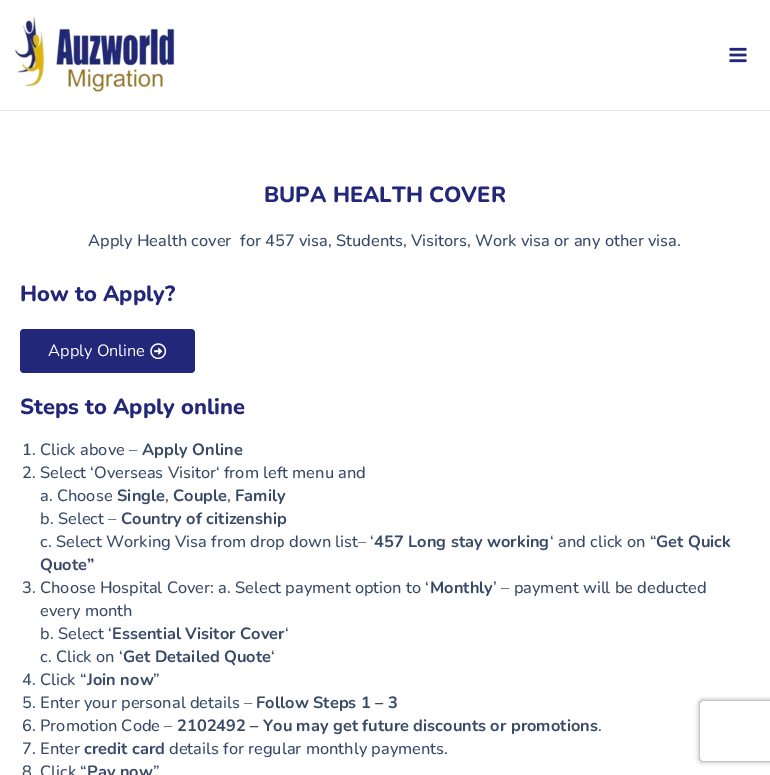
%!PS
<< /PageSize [770 775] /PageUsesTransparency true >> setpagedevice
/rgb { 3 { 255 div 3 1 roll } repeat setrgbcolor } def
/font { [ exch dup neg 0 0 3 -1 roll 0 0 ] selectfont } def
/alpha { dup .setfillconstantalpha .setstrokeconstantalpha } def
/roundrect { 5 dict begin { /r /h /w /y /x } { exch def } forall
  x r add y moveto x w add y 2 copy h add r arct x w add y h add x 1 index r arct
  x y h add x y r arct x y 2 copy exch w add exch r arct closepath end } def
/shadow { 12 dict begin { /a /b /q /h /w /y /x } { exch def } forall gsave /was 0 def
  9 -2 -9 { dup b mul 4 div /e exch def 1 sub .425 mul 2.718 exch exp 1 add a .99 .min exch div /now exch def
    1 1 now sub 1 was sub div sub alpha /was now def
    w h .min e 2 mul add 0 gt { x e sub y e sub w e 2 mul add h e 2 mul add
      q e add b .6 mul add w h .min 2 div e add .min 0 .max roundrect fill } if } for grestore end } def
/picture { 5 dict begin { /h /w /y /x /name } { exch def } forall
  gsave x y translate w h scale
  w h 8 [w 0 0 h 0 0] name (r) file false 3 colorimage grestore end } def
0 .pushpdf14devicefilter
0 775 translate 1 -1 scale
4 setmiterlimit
255 255 255 rgb
0 0 770 775 rectfill
234 234 234 rgb
0 110 770 1 rectfill
(img/1.rgb) 15 16 160 76 picture
(img/2.rgb) 729 47 18 16 picture
34 39 121 rgb
20 329 175 44 4 roundrect fill
(img/3.rgb) 150 343 17 16 picture
gsave
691 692 moveto 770 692 lineto 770 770 lineto 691 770 lineto closepath 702 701 moveto 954 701 lineto 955 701 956 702 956 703 curveto 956 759 lineto 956 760 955 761 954 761 curveto 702 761 lineto 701 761 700 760 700 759 curveto 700 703 lineto 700 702 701 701 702 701 curveto closepath eoclip newpath
128 128 128 rgb
700 701 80 60 2 2.5 1 shadow
grestore
/Nunito-ExtraBold 21.9 font
264 202 moveto (BUPA HEALTH COVER) show
/Nunito-Medium 16.4 font
56 74 104 rgb
88 246 moveto (Apply Health cover  for 457 visa, Students, Visitors, Work visa or any other visa.) show
/Nunito-ExtraBold 21.9 font
34 39 121 rgb
20 301 moveto (How to Apply?) show
/Nunito-Regular 16.4 font
255 255 255 rgb
48 356 moveto (Apply Online) show
/Nunito-ExtraBold 21.9 font
34 39 121 rgb
20 414 moveto (Steps to Apply online) show
/Nunito-Medium 16.4 font
56 74 104 rgb
22 455 moveto (1. Click above –) show
/Nunito-Bold 16.4 font
142 455 moveto (Apply Online) show
/Nunito-Medium 16.4 font
22 478 moveto (2. Select ‘Overseas Visitor‘ from left menu and) show
40 501 moveto (a. Choose) show
/Nunito-Bold 16.4 font
117 501 moveto (Single) show
/Nunito-Medium 16.4 font
165 501 moveto (,) show
/Nunito-Bold 16.4 font
173 501 moveto (Couple) show
/Nunito-Medium 16.4 font
227 501 moveto (,) show
/Nunito-Bold 16.4 font
235 501 moveto (Family) show
/Nunito-Medium 16.4 font
40 524 moveto (b. Select –) show
/Nunito-Bold 16.4 font
121 524 moveto (Country of citizenship) show
/Nunito-Medium 16.4 font
40 547 moveto (c. Select Working Visa from drop down list– ‘) show
/Nunito-Bold 16.4 font
374 547 moveto (457 Long stay working) show
/Nunito-Medium 16.4 font
550 547 moveto (‘ and click on “) show
/Nunito-Bold 16.4 font
656 547 moveto (Get Quick) show
40 570 moveto (Quote”) show
/Nunito-Medium 16.4 font
22 593 moveto (3. Choose Hospital Cover: a. Select payment option to ‘) show
/Nunito-Bold 16.4 font
430 593 moveto (Monthly) show
/Nunito-Medium 16.4 font
[
  [(’ – payment will be deducted) 493 593]
  [(every month) 40 616]
  [(b. Select ‘) 40 639]
] { aload pop moveto show } forall
/Nunito-Bold 16.4 font
112 639 moveto (Essential Visitor Cover) show
/Nunito-Medium 16.4 font
285 639 moveto (‘) show
40 662 moveto (c. Click on ‘) show
/Nunito-Bold 16.4 font
123 662 moveto (Get Detailed Quote) show
/Nunito-Medium 16.4 font
271 662 moveto (‘) show
22 685 moveto (4. Click “) show
/Nunito-Bold 16.4 font
87 685 moveto (Join now) show
/Nunito-Medium 16.4 font
153 685 moveto (”) show
22 708 moveto (5. Enter your personal details –) show
/Nunito-Bold 16.4 font
256 708 moveto (Follow Steps 1 – 3) show
/Nunito-Medium 16.4 font
22 731 moveto (6. Promotion Code –) show
/Nunito-Bold 16.4 font
177 731 moveto (2102492 – You may get future discounts or promotions) show
/Nunito-Medium 16.4 font
598 731 moveto (.) show
22 754 moveto (7. Enter) show
/Nunito-Bold 16.4 font
84 754 moveto (credit card) show
/Nunito-Medium 16.4 font
[
  [(details for regular monthly payments.) 169 754]
  [(8) 22 777]
  [(Click “) 40 777]
] { aload pop moveto show } forall
/Nunito-Bold 16.4 font
87 777 moveto (Pay now) show
/Nunito-Medium 16.4 font
153 777 moveto (”) show
.poppdf14devicefilter showpage
